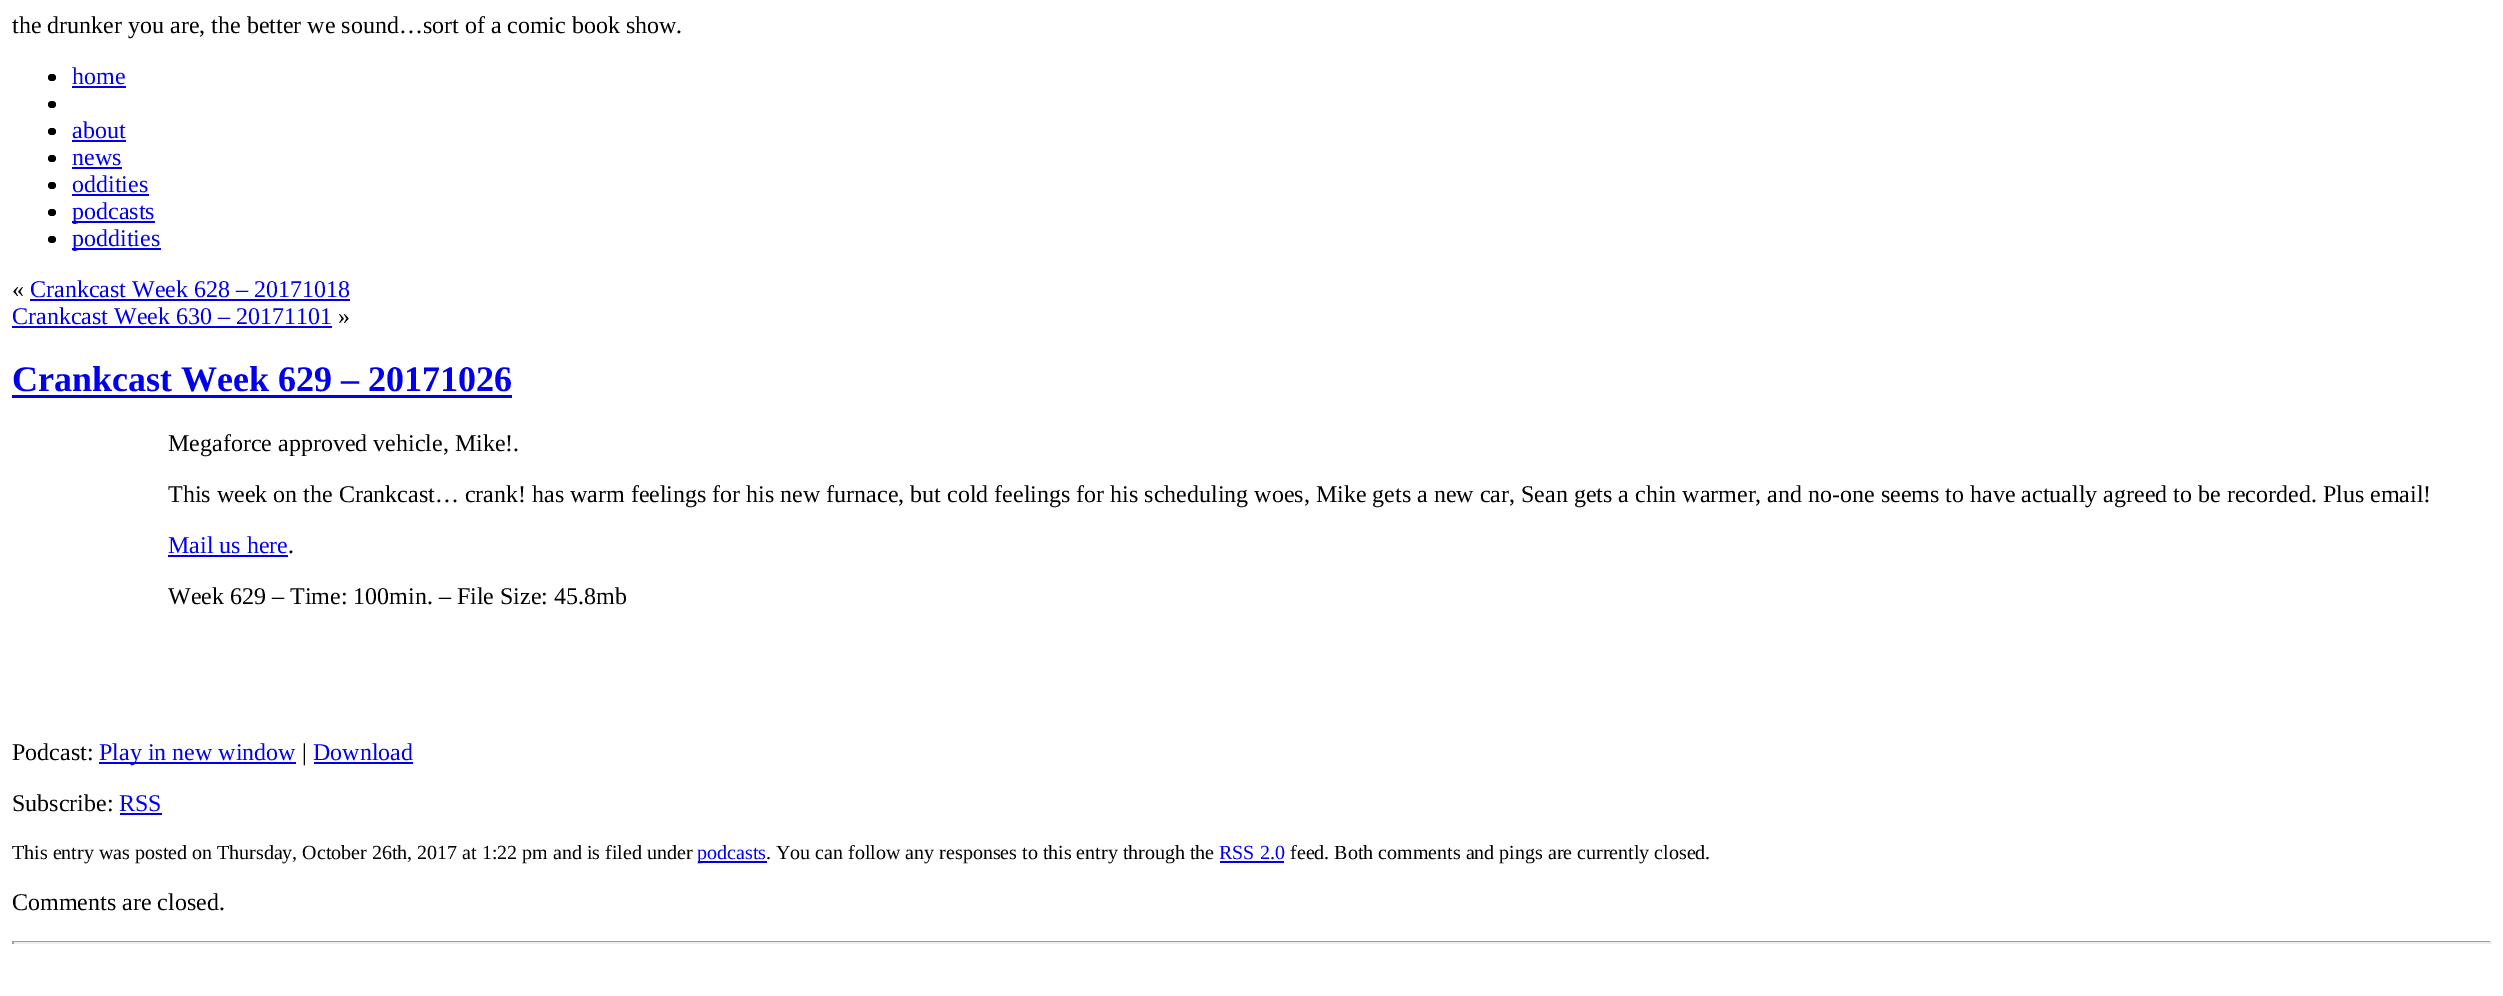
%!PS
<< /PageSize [2503 996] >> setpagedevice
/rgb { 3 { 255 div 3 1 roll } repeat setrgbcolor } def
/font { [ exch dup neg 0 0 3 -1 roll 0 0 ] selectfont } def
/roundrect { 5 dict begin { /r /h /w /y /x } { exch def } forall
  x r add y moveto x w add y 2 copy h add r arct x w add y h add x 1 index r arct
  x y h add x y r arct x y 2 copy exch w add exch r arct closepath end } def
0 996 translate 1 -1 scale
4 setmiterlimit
255 255 255 rgb
0 0 2503 996 rectfill
0 0 0 rgb
48 74 8 7 3.5 roundrect fill
0 0 238 rgb
72 86 54 2 rectfill
0 0 0 rgb
48 101 8 7 3.5 roundrect fill
48 128 8 7 3.5 roundrect fill
0 0 238 rgb
72 140 54 2 rectfill
0 0 0 rgb
48 155 8 7 3.5 roundrect fill
0 0 238 rgb
72 167 50 2 rectfill
0 0 0 rgb
48 182 8 7 3.5 roundrect fill
0 0 238 rgb
72 194 77 2 rectfill
0 0 0 rgb
48 209 8 7 3.5 roundrect fill
0 0 238 rgb
72 221 83 2 rectfill
0 0 0 rgb
48 236 8 7 3.5 roundrect fill
[
  [72 248 89 2 0 0 238]
  [30 299 320 2 0 0 238]
  [12 326 320 2 0 0 238]
  [12 395 500 3 0 0 238]
  [168 555 120 2 0 0 238]
  [99 762 197 2 0 0 238]
  [314 762 99 2 0 0 238]
  [120 813 42 2 0 0 238]
  [698 861 69 2 0 0 238]
  [1220 861 64 2 0 0 238]
  [12 941 2480 1 159 159 159]
  [2490 941 2 3 238 238 238]
  [12 942 2480 2 238 238 238]
  [12 941 2 3 159 159 159]
] { aload pop rgb rectfill } forall
/LiberationSerif-Regular 24 font
0 0 0 rgb
12 33 moveto (the drunker you are, the better we sound…sort of a comic book show.) show
0 0 238 rgb
[
  [(home) 72 84]
  [(about) 72 138]
  [(news) 72 165]
  [(oddities) 72 192]
  [(podcasts) 72 219]
  [(poddities) 72 246]
] { aload pop moveto show } forall
0 0 0 rgb
12 297 moveto («) show
0 0 238 rgb
30 297 moveto (Crankcast Week 628 – 20171018) show
12 324 moveto (Crankcast Week 630 – 20171101) show
0 0 0 rgb
338 324 moveto (») show
/LiberationSerif-Bold 36 font
0 0 238 rgb
12 391 moveto (Crankcast Week 629 – 20171026) show
/LiberationSerif-Regular 24 font
0 0 0 rgb
168 451 moveto (Megaforce approved vehicle, Mike!.) show
168 502 moveto (This week on the Crankcast… crank! has warm feelings for his new furnace, but cold feelings for his scheduling woes, Mike gets a new car, Sean gets a chin warmer, and no-one seems to have actually agreed to be recorded. Plus email!) show
0 0 238 rgb
168 553 moveto (Mail us here) show
0 0 0 rgb
[
  [(.) 288 553]
  [(Week 629 – Time: 100min. – File Size: 45.8mb) 168 604]
  [(Podcast:) 12 760]
] { aload pop moveto show } forall
0 0 238 rgb
99 760 moveto (Play in new window) show
0 0 0 rgb
302 760 moveto (|) show
0 0 238 rgb
313 760 moveto (Download) show
0 0 0 rgb
12 811 moveto (Subscribe:) show
0 0 238 rgb
119 811 moveto (RSS) show
/LiberationSerif-Regular 20 font
0 0 0 rgb
12 859 moveto (This entry was posted on Thursday, October 26th, 2017 at 1:22 pm and is filed under) show
0 0 238 rgb
697 859 moveto (podcasts) show
0 0 0 rgb
766 859 moveto (. You can follow any responses to this entry through the) show
0 0 238 rgb
1219 859 moveto (RSS 2.0) show
0 0 0 rgb
1290 859 moveto (feed. Both comments and pings are currently closed.) show
/LiberationSerif-Regular 24 font
12 910 moveto (Comments are closed.) show
showpage
